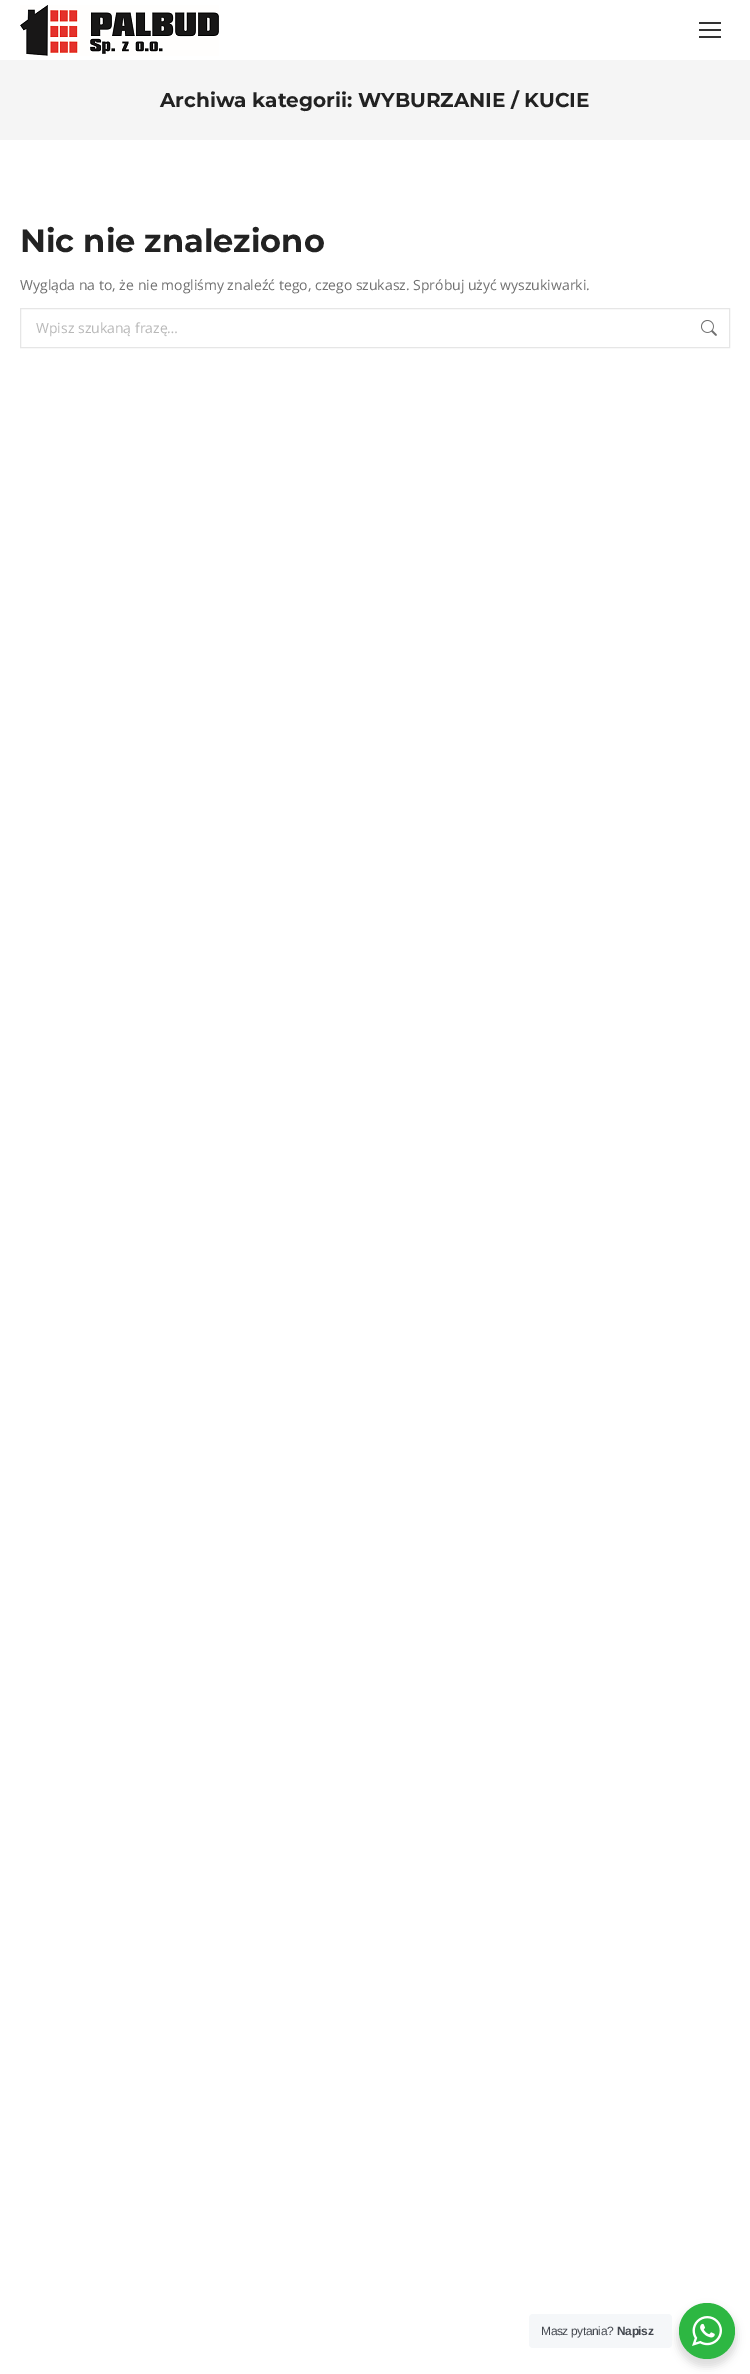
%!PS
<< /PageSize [750 2374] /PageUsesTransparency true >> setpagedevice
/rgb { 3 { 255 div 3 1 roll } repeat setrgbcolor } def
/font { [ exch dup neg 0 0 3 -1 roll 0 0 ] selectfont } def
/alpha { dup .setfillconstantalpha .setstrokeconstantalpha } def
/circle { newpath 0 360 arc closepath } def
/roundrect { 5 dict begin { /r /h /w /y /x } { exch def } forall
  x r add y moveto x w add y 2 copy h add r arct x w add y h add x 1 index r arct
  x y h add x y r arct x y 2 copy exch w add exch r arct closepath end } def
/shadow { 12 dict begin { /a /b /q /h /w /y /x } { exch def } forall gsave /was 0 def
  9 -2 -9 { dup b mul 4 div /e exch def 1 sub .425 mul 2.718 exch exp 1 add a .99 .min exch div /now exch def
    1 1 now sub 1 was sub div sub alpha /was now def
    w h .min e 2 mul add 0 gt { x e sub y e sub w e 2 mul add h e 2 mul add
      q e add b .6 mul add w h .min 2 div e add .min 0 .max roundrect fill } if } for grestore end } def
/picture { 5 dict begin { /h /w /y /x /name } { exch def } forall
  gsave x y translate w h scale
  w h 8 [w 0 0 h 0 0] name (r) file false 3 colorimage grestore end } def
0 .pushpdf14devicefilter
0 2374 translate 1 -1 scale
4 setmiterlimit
255 255 255 rgb
0 0 750 2374 rectfill
(img/1.rgb) 20 5 199 51 picture
[
  [699 22 22 2 51 51 51]
  [699 29 22 2 51 51 51]
  [699 36 22 2 51 51 51]
  [0 60 750 80 245 245 245]
] { aload pop rgb rectfill } forall
230 230 230 rgb
20.5 308.5 709 39 rectstroke
(img/2.rgb) 701 320 16 16 picture
0 0 0 rgb
677 2307 60 60 30 4 0.14 shadow
245 247 249 rgb
529 2314 143 34 4 roundrect fill
45 183 66 rgb
707 2331 28 circle fill
(img/3.rgb) 692 2316 30 30 picture
/Montserrat-Bold 20 font
34 34 34 rgb
160 107 moveto (Archiwa kategorii: WYBURZANIE / KUCIE) show
/Montserrat-Bold 32 font
20 252 moveto (Nic nie znaleziono) show
/OpenSans-Regular 14 font
112 112 112 rgb
20 290 moveto (Wygląda na to, że nie mogliśmy znaleźć tego, czego szukasz. Spróbuj użyć wyszukiwarki.) show
184 184 184 rgb
36 333 moveto (Wpisz szukaną frazę…) show
/LiberationSans-Regular 12 font
67 71 78 rgb
541 2335 moveto -0.4 0 (Masz pytania?) ashow
/LiberationSans-Bold 12 font
617 2335 moveto -0.4 0 (Napisz) ashow
.poppdf14devicefilter showpage
